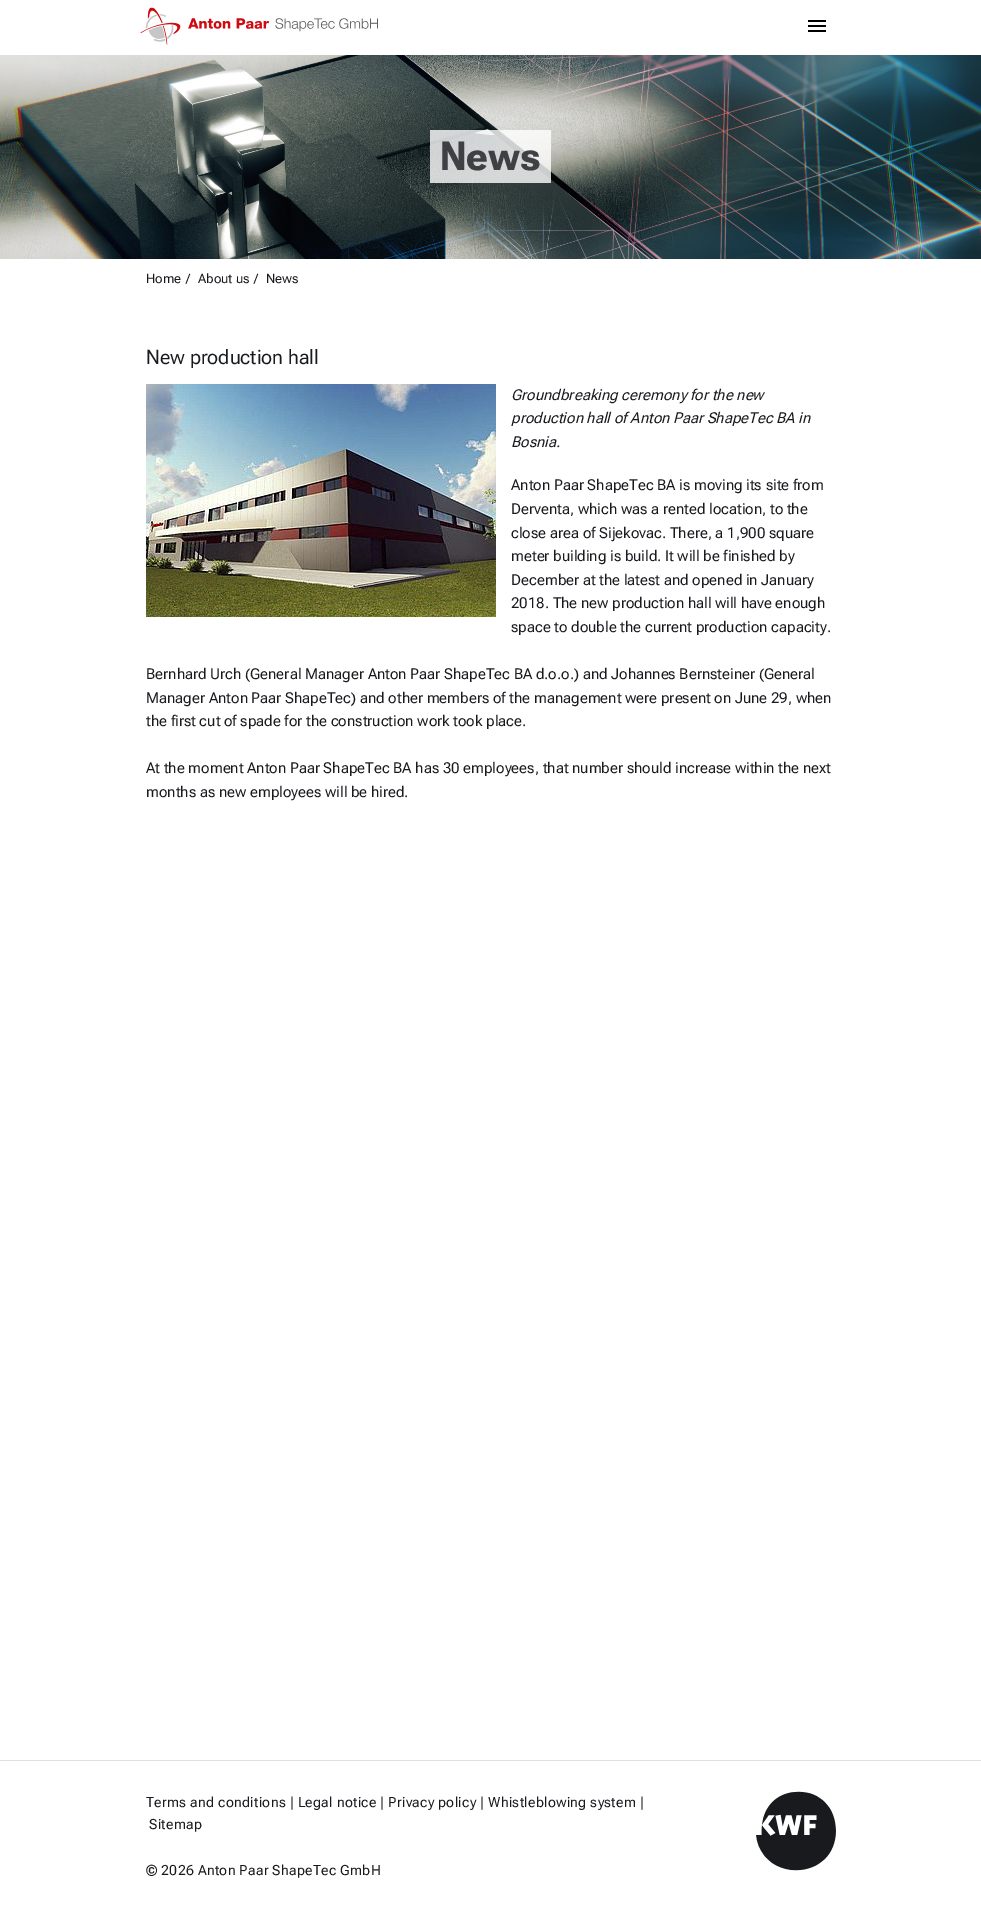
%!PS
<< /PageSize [981 1921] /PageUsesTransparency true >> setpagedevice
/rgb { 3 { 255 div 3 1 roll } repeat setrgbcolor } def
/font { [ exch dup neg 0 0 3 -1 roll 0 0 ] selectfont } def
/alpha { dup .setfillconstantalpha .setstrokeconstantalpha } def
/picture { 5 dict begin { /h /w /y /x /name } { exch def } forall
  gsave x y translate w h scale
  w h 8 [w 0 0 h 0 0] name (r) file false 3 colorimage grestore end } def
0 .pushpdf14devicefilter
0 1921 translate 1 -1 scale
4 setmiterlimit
255 255 255 rgb
0 0 981 1921 rectfill
(img/1.rgb) 140 7 238 38 picture
[
  [808 20 18 2 0 0 0]
  [808 25 18 2 0 0 0]
  [808 30 18 2 0 0 0]
] { aload pop rgb rectfill } forall
(img/2.rgb) 0 55 981 204 picture
0.8 alpha
255 255 255 rgb
430 130 121 53 rectfill
1 alpha
(img/3.rgb) 146 384 350 233 picture
223 224 230 rgb
0 1760 981 1 rectfill
(img/4.rgb) 756 1791 80 80 picture
/RobotoFlex-Bold 40 font
62 64 67 rgb
440 170 moveto (News) show
/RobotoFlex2-Regular 13 font
24 26 30 rgb
[
  [(Home) 146 283]
  [(/) 186 283]
  [(About us) 198 283]
  [(/) 254 283]
  [(News) 266 283]
] { aload pop moveto show } forall
/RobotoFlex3-Regular 20 font
146 364 moveto (New production hall) show
/RobotoFlex-Italic 15 font
[
  [(Groundbreaking ceremony for the new) 511 400]
  [(production hall of Anton Paar ShapeTec BA in) 511 423]
  [(Bosnia.) 511 447]
] { aload pop moveto show } forall
/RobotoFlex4-Regular 15 font
[
  [(Anton Paar ShapeTec BA is moving its site from) 511 490]
  [(Derventa, which was a rented location, to the) 511 514]
  [(close area of Sijekovac. There, a 1,900 square) 511 538]
  [(meter building is build. It will be finished by) 511 561]
  [(December at the latest and opened in January) 511 585]
  [(2018. The new production hall will have enough) 511 608]
  [(space to double the current production capacity.) 511 632]
  [(Bernhard Urch \(General Manager Anton Paar ShapeTec BA d.o.o.\) and Johannes Bernsteiner \(General) 146 679]
  [(Manager Anton Paar ShapeTec\) and other members of the management were present on June 29, when) 146 703]
  [(the first cut of spade for the construction work took place.) 146 726]
  [(At the moment Anton Paar ShapeTec BA has 30 employees, that number should increase within the next) 146 773]
  [(months as new employees will be hired.) 146 797]
] { aload pop moveto show } forall
/RobotoFlex-Regular 14 font
146 1807 moveto 0.28 0 (Terms and conditions | Legal notice | Privacy policy | Whistleblowing system |) ashow
149 1829 moveto 0.28 0 (Sitemap) ashow
146 1875 moveto 0.28 0 (© 2026 Anton Paar ShapeTec GmbH) ashow
.poppdf14devicefilter showpage
